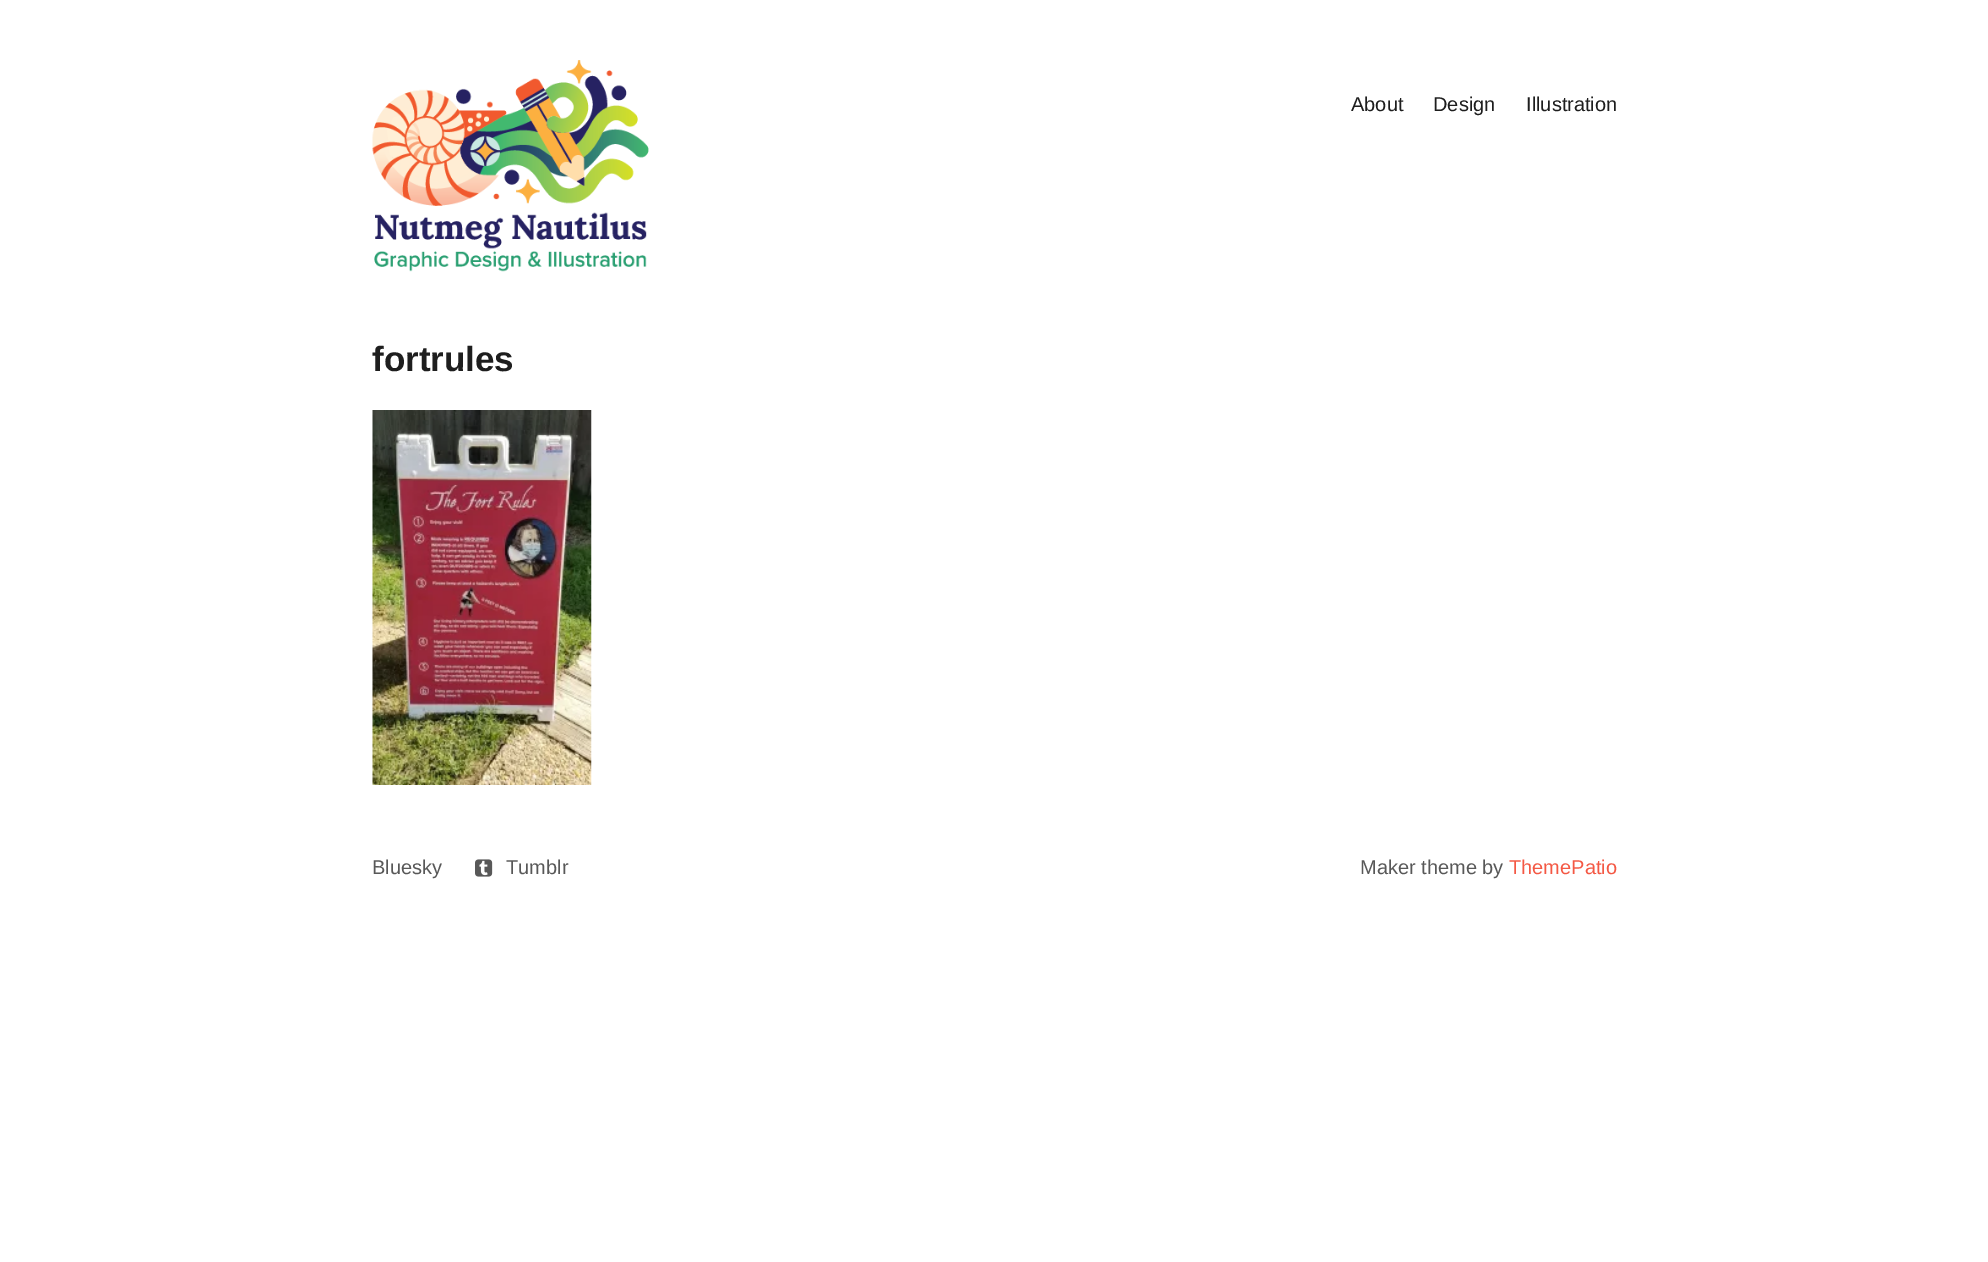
%!PS
<< /PageSize [1988 1262] >> setpagedevice
/rgb { 3 { 255 div 3 1 roll } repeat setrgbcolor } def
/font { [ exch dup neg 0 0 3 -1 roll 0 0 ] selectfont } def
/picture { 5 dict begin { /h /w /y /x /name } { exch def } forall
  gsave x y translate w h scale
  w h 8 [w 0 0 h 0 0] name (r) file false 3 colorimage grestore end } def
0 1262 translate 1 -1 scale
4 setmiterlimit
255 255 255 rgb
0 0 1988 1262 rectfill
(img/1.rgb) 372 60 277 212 picture
(img/2.rgb) 372 410 220 375 picture
(img/3.rgb) 475 859 18 18 picture
/LiberationSans-Regular 20 font
30 30 30 rgb
[
  [(About) 1351 111]
  [(Design) 1433 111]
  [(Illustration) 1526 111]
] { aload pop moveto show } forall
/LiberationSans-Bold 35 font
372 371 moveto (fortrules) show
/LiberationSans-Regular 20 font
88 88 88 rgb
[
  [(Bluesky) 372 874]
  [(Tumblr) 506 874]
  [(Maker theme by) 1360 874]
] { aload pop moveto show } forall
244 88 68 rgb
1509 874 moveto (ThemePatio) show
showpage
